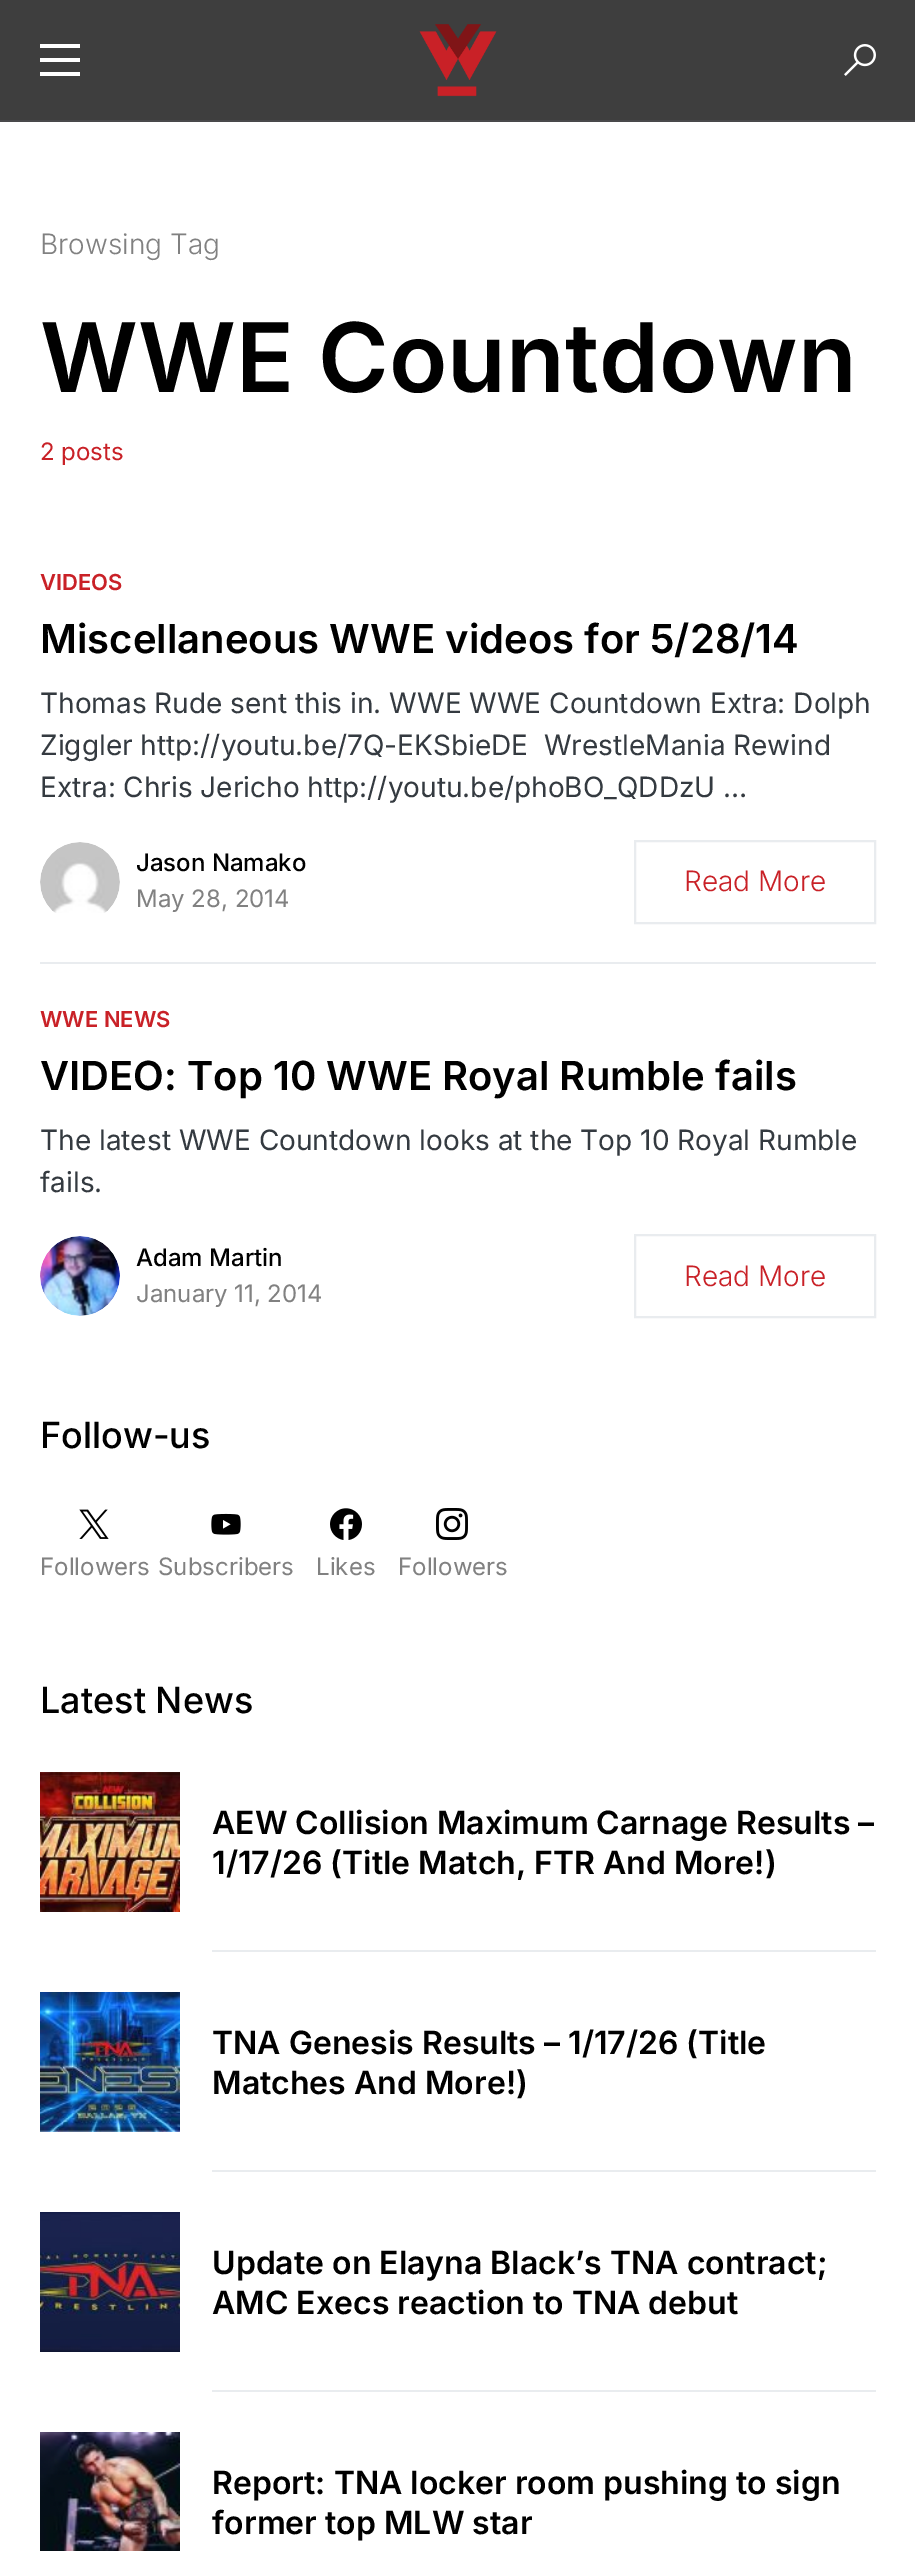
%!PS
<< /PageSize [915 2551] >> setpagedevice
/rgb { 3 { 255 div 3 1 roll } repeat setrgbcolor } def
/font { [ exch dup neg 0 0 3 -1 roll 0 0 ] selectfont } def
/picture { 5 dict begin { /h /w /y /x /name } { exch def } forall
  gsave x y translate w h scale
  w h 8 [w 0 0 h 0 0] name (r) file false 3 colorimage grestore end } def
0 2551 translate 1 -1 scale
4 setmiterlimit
255 255 255 rgb
0 0 915 2551 rectfill
[
  [0 0 915 120 62 62 62]
  [0 120 915 2 73 73 75]
  [40 44 40 4 255 255 255]
  [40 58 40 4 255 255 255]
  [40 72 40 4 255 255 255]
] { aload pop rgb rectfill } forall
(img/1.rgb) 419 24 78 73 picture
(img/2.rgb) 844 44 32 32 picture
(img/3.rgb) 40 842 80 71 picture
233 236 239 rgb
2 setlinewidth
635 841 240 82 rectstroke
40 962 836 2 rectfill
(img/4.rgb) 40 1236 80 80 picture
635 1235 240 82 rectstroke
(img/5.rgb) 79 1509 30 30 picture
(img/6.rgb) 211 1513 30 22 picture
(img/7.rgb) 330 1508 32 32 picture
(img/8.rgb) 436 1508 32 32 picture
(img/9.rgb) 40 1772 140 140 picture
212 1950 664 2 rectfill
(img/10.rgb) 40 1992 140 140 picture
212 2170 664 2 rectfill
(img/11.rgb) 40 2212 140 140 picture
212 2390 664 2 rectfill
(img/12.rgb) 40 2432 140 119 picture
/Inter-Light 28 font
129 129 129 rgb
40 254 moveto (Browsing Tag) show
/Inter-SemiBold 96 font
0 0 0 rgb
40 392 moveto (WWE Countdown) show
/Inter-Regular 24 font
201 33 39 rgb
40 460 moveto (2 posts) show
/Inter-SemiBold 22 font
40 590 moveto (VIDEOS) show
/Inter-SemiBold 40 font
0 0 0 rgb
40 653 moveto (Miscellaneous WWE videos for 5/28/14) show
/Inter-Regular 28 font
52 58 64 rgb
[
  [(Thomas Rude sent this in. WWE WWE Countdown Extra: Dolph) 40 713]
  [(Ziggler http://youtu.be/7Q-EKSbieDE  WrestleMania Rewind) 40 755]
  [(Extra: Chris Jericho http://youtu.be/phoBO_QDDzU …) 40 797]
] { aload pop moveto show } forall
/Inter-Medium 24 font
0 0 0 rgb
136 871 moveto (Jason Namako) show
/Inter-Regular 24 font
129 129 129 rgb
136 907 moveto (May 28, 2014) show
/Inter-Light 28 font
201 33 39 rgb
684 891 moveto (Read More) show
/Inter-SemiBold 22 font
40 1027 moveto (WWE NEWS) show
/Inter-SemiBold 40 font
0 0 0 rgb
40 1090 moveto (VIDEO: Top 10 WWE Royal Rumble fails) show
/Inter-Regular 28 font
52 58 64 rgb
40 1150 moveto (The latest WWE Countdown looks at the Top 10 Royal Rumble) show
40 1192 moveto (fails.) show
/Inter-Medium 24 font
0 0 0 rgb
136 1266 moveto (Adam Martin) show
/Inter-Regular 24 font
129 129 129 rgb
136 1302 moveto (January 11, 2014) show
/Inter-Light 28 font
201 33 39 rgb
684 1286 moveto (Read More) show
/Inter-Medium 36 font
0 0 0 rgb
40 1448 moveto (Follow-us) show
/Inter-Regular 24 font
129 129 129 rgb
[
  [(Followers) 40 1575]
  [(Subscribers) 158 1575]
  [(Likes) 316 1575]
  [(Followers) 398 1575]
] { aload pop moveto show } forall
/Inter-Medium 36 font
0 0 0 rgb
40 1713 moveto (Latest News) show
/Inter-SemiBold 32 font
[
  [(AEW Collision Maximum Carnage Results –) 212 1834]
  [(1/17/26 \(Title Match, FTR And More!\)) 212 1874]
  [(TNA Genesis Results – 1/17/26 \(Title) 212 2054]
  [(Matches And More!\)) 212 2094]
  [(Update on Elayna Black’s TNA contract;) 212 2274]
  [(AMC Execs reaction to TNA debut) 212 2314]
  [(Report: TNA locker room pushing to sign) 212 2494]
  [(former top MLW star) 212 2534]
] { aload pop moveto show } forall
showpage
